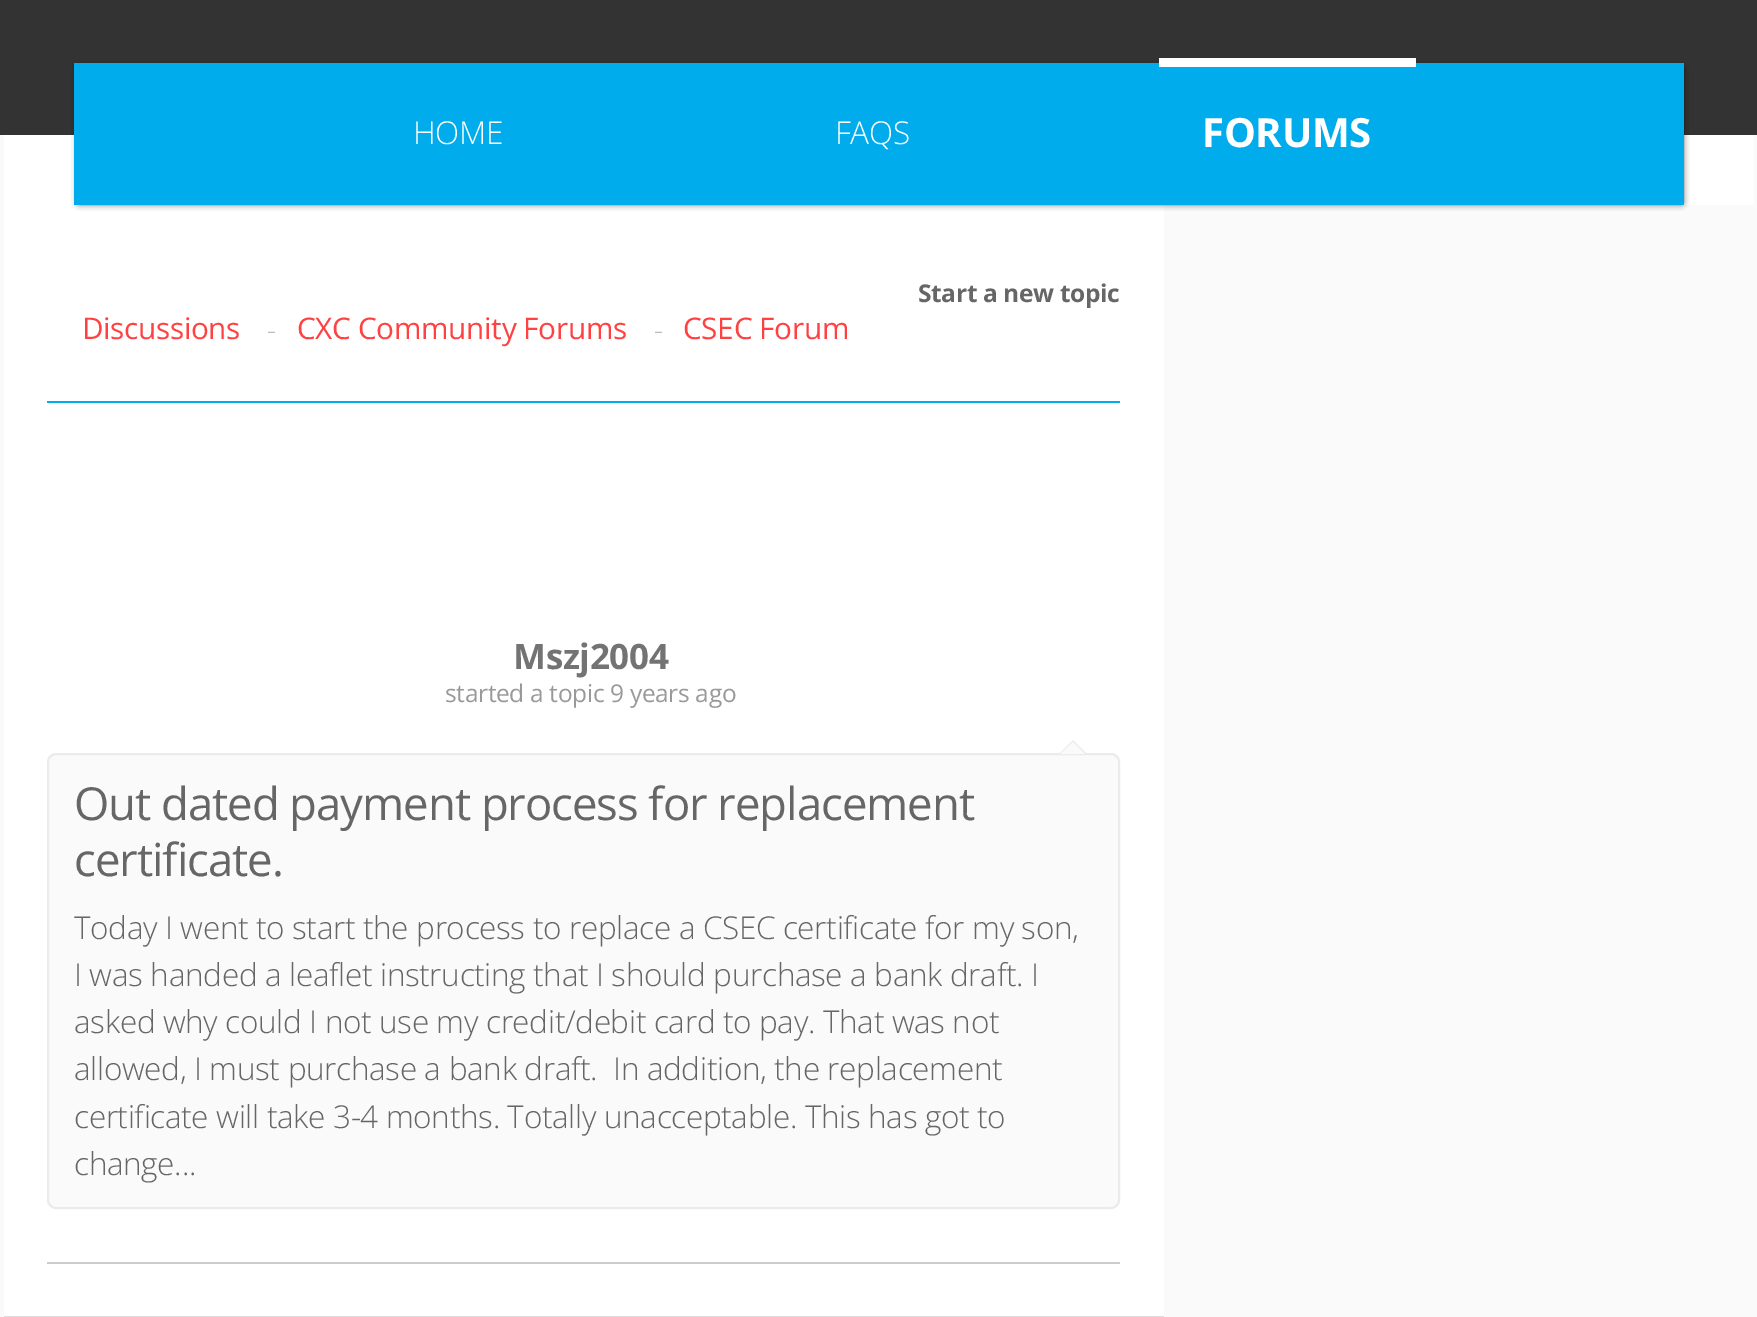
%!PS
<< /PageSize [1757 1317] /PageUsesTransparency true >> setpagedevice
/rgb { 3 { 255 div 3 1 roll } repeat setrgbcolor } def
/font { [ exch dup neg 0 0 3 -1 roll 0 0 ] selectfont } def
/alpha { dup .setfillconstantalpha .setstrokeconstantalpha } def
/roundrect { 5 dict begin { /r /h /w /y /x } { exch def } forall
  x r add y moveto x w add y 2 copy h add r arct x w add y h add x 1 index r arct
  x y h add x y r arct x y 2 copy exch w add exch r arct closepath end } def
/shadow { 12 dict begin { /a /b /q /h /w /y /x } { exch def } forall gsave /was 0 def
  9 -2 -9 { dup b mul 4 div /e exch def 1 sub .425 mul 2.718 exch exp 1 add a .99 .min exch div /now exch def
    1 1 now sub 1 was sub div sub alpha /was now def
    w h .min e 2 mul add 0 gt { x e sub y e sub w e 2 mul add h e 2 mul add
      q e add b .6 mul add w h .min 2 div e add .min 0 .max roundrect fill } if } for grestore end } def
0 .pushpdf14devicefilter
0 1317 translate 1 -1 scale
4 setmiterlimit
250 250 250 rgb
0 0 1757 1317 rectfill
[
  [0 0 1757 135 51 51 51]
  [4 135 1750 70 255 255 255]
  [4 205 1160 1111 255 255 255]
] { aload pop rgb rectfill } forall
0 0 0 rgb
79 68 1603 135 0 3.5 1 shadow
[
  [74 63 1610 142 0 172 236]
  [1159 58 257 9 255 255 255]
  [47 401 1073 2 0 172 236]
  [47 1262 1073 2 204 204 204]
] { aload pop rgb rectfill } forall
250 250 250 rgb
48 754 1071 454 8 roundrect gsave fill grestore
235 235 235 rgb
2 setlinewidth
stroke
1087 754 moveto 1059 754 lineto 1073 740 lineto closepath fill
250 250 250 rgb
1085 754 moveto 1060.5 754 lineto 1073 742 lineto closepath fill
220 220 220 rgb
4 1316 1160 1 rectfill
/OpenSans-Light 31.5 font
255 255 255 rgb
413 144 moveto -0.35 0 (HOME) ashow
835 144 moveto -0.35 0 (FAQS) ashow
/OpenSans-Bold 40.25 font
1202 147 moveto -0.35 0 (FORUMS) ashow
/OpenSans-Bold 24.5 font
102 102 102 rgb
918 302 moveto -0.35 0 (Start a new topic) ashow
/OpenSans-Regular 29.75 font
255 65 65 rgb
82 339 moveto -0.35 0 (Discussions) ashow
/OpenSans-Light 28 font
187 187 187 rgb
267 340 moveto -0.35 0 (-) ashow
/OpenSans-Regular 29.75 font
255 65 65 rgb
297 339 moveto -0.35 0 (CXC Community Forums) ashow
/OpenSans-Light 28 font
187 187 187 rgb
654 340 moveto -0.35 0 (-) ashow
/OpenSans-Regular 29.75 font
255 65 65 rgb
683 339 moveto -0.35 0 (CSEC Forum) ashow
/OpenSans-Bold 35 font
115 115 115 rgb
513 669 moveto -0.35 0 (Mszj2004) ashow
/OpenSans-Regular 24.5 font
153 153 153 rgb
445 702 moveto -0.35 0 (started a topic 9 years ago) ashow
/OpenSans-Regular 45.5 font
102 102 102 rgb
74 820 moveto -1.05 0 (Out dated payment process for replacement) ashow
74 876 moveto -1.05 0 (certificate.) ashow
/OpenSans-Light 31.5 font
74 939 moveto -0.35 0 (Today I went to start the process to replace a CSEC certificate for my son,) ashow
74 986 moveto -0.35 0 (I was handed a leaflet instructing that I should purchase a bank draft. I) ashow
74 1033 moveto -0.35 0 (asked why could I not use my credit/debit card to pay. That was not) ashow
74 1080 moveto -0.35 0 (allowed, I must purchase a bank draft.  In addition, the replacement) ashow
74 1128 moveto -0.35 0 (certificate will take 3-4 months. Totally unacceptable. This has got to) ashow
74 1175 moveto -0.35 0 (change...) ashow
.poppdf14devicefilter showpage
